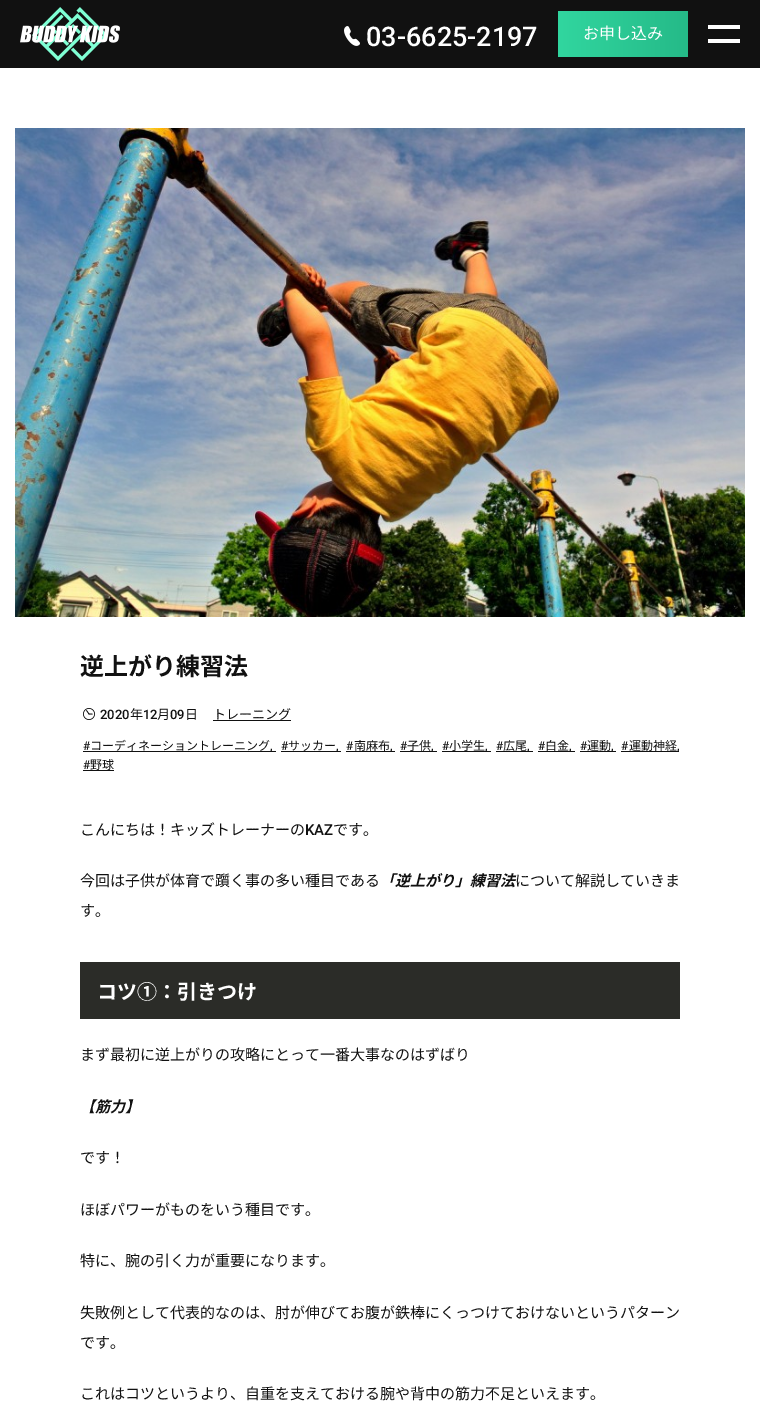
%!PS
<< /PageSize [760 1427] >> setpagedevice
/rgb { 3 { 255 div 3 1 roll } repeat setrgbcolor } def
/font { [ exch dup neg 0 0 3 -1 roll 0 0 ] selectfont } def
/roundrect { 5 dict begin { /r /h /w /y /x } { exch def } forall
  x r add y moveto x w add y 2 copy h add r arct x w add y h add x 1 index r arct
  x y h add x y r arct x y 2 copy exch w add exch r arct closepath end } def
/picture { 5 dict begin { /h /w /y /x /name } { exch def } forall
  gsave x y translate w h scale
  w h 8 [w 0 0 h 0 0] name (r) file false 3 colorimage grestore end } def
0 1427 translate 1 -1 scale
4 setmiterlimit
255 255 255 rgb
0 0 760 1427 rectfill
17 17 17 rgb
0 0 760 68 rectfill
(img/1.rgb) 20 7 100 54 picture
(img/2.rgb) 344 26 16 20 picture
gsave 558 11 130 46 3 roundrect clip newpath
<< /ShadingType 2 /ColorSpace /DeviceRGB /Coords [558 34 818 34] /Extend [true true] /Function << /FunctionType 3 /Domain [0 1] /Functions [<< /FunctionType 2 /Domain [0 1] /C0 [0.192 0.839 0.624] /C1 [0.145 0.729 0.533] /N 1 >> << /FunctionType 2 /Domain [0 1] /C0 [0.145 0.729 0.533] /C1 [0.192 0.839 0.624] /N 1 >>] /Bounds [0.51] /Encode [0 1 0 1] >> >> shfill grestore
255 255 255 rgb
708 25 32 4 rectfill
708 39 32 4 rectfill
(img/3.rgb) 15 128 730 489 picture
(img/4.rgb) 83 708 12 12 picture
[
  [213 720 78 1 17 17 17]
  [83 751 193 1 17 17 17]
  [281 751 60 1 17 17 17]
  [346 751 49 1 17 17 17]
  [400 751 37 1 17 17 17]
  [442 751 49 1 17 17 17]
  [496 751 37 1 17 17 17]
  [538 751 37 1 17 17 17]
  [580 751 36 1 17 17 17]
  [621 751 58 1 17 17 17]
  [83 770 31 1 17 17 17]
  [80 962 600 57 43 44 40]
] { aload pop rgb rectfill } forall
/Roboto-Medium 27 font
255 255 255 rgb
366 46 moveto (03-6625-2197) show
/NotoSansJP-Regular 16 font
583 39 moveto (お申し込み) show
/NotoSansJP-Bold 24 font
17 17 17 rgb
80 675 moveto (逆上がり練習法) show
/Roboto-Medium 13 font
100 719 moveto (2020) show
/NotoSansJP-Regular 13 font
130 719 moveto (年) show
/Roboto-Medium 13 font
143 719 moveto (12) show
/NotoSansJP-Regular 13 font
157 719 moveto (月) show
/Roboto-Medium 13 font
170 719 moveto (09) show
/NotoSansJP-Regular 13 font
185 719 moveto (日) show
213 719 moveto (トレーニング) show
/Roboto-Medium 12 font
83 750 moveto (#) show
/NotoSansJP-Regular 12 font
90 750 moveto (コーディネーショントレーニング) show
/Roboto-Medium 12 font
270 750 moveto (,) show
281 750 moveto (#) show
/NotoSansJP-Regular 12 font
288 750 moveto (サッカー) show
/Roboto-Medium 12 font
336 750 moveto (,) show
346 750 moveto (#) show
/NotoSansJP-Regular 12 font
354 750 moveto (南麻布) show
/Roboto-Medium 12 font
390 750 moveto (,) show
400 750 moveto (#) show
/NotoSansJP-Regular 12 font
407 750 moveto (子供) show
/Roboto-Medium 12 font
431 750 moveto (,) show
442 750 moveto (#) show
/NotoSansJP-Regular 12 font
449 750 moveto (小学生) show
/Roboto-Medium 12 font
485 750 moveto (,) show
496 750 moveto (#) show
/NotoSansJP-Regular 12 font
503 750 moveto (広尾) show
/Roboto-Medium 12 font
527 750 moveto (,) show
538 750 moveto (#) show
/NotoSansJP-Regular 12 font
545 750 moveto (白金) show
/Roboto-Medium 12 font
569 750 moveto (,) show
580 750 moveto (#) show
/NotoSansJP-Regular 12 font
587 750 moveto (運動) show
/Roboto-Medium 12 font
611 750 moveto (,) show
621 750 moveto (#) show
/NotoSansJP-Regular 12 font
629 750 moveto (運動神経) show
/Roboto-Medium 12 font
677 750 moveto (,) show
83 769 moveto (#) show
/NotoSansJP-Regular 12 font
90 769 moveto (野球) show
/NotoSansJP-Regular 15 font
80 835 moveto (こんにちは！キッズトレーナーの) show
/Roboto-Medium 15 font
305 835 moveto (KAZ) show
/NotoSansJP-Regular 15 font
333 835 moveto (です。) show
80 886 moveto (今回は子供が体育で躓く事の多い種目である) show
/NotoSansJP-BoldItalic 15 font
380 886 moveto (「逆上がり」練習法) show
/NotoSansJP-Regular 15 font
515 886 moveto (について解説していきま) show
80 916 moveto (す。) show
/NotoSansJP-Bold 20 font
255 255 255 rgb
97 999 moveto (コツ①：引きつけ) show
/NotoSansJP-Regular 15 font
17 17 17 rgb
80 1060 moveto (まず最初に逆上がりの攻略にとって一番大事なのはずばり) show
/NotoSansJP-BoldItalic 15 font
80 1112 moveto (【筋力】) show
/NotoSansJP-Regular 15 font
[
  [(です！) 80 1163]
  [(ほぼパワーがものをいう種目です。) 80 1215]
  [(特に、腕の引く力が重要になります。) 80 1266]
  [(失敗例として代表的なのは、肘が伸びてお腹が鉄棒にくっつけておけないというパターン) 80 1318]
  [(です。) 80 1348]
  [(これはコツというより、自重を支えておける腕や背中の筋力不足といえます。) 80 1399]
] { aload pop moveto show } forall
showpage
